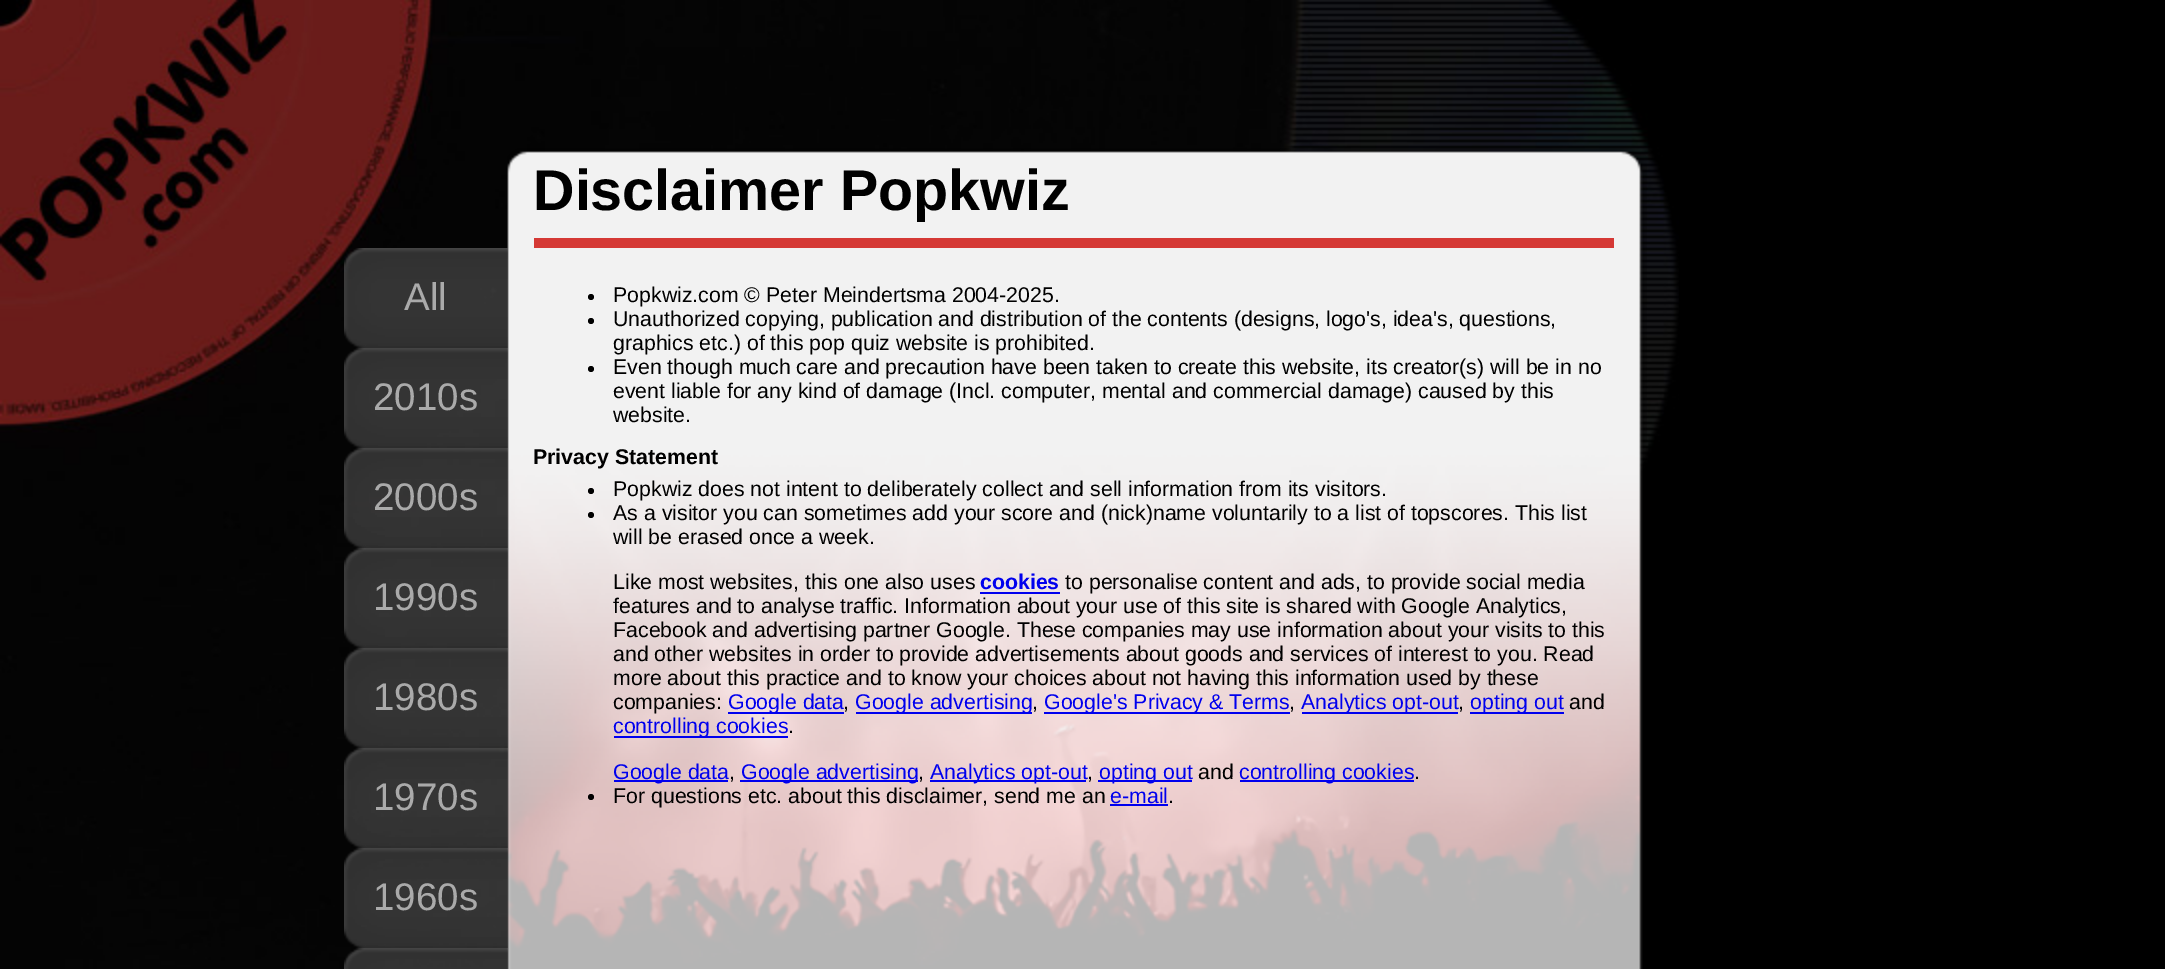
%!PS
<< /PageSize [2165 969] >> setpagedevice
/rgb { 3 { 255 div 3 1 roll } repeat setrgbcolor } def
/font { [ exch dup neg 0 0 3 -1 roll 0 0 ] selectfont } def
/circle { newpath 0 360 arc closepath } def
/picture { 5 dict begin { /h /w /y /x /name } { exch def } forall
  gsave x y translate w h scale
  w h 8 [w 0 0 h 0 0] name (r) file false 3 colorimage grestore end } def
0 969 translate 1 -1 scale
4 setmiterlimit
0 0 0 rgb
0 0 2165 969 rectfill
(img/1.rgb) 0 0 1679 969 picture
(img/2.rgb) 0 0 289 283 picture
(img/11.rgb) 507 148 1140 821 picture
(img/3.rgb) 344 248 164 100 picture
(img/4.rgb) 344 348 164 100 picture
(img/5.rgb) 344 448 164 100 picture
(img/6.rgb) 344 548 164 100 picture
(img/7.rgb) 344 648 164 100 picture
(img/8.rgb) 344 748 164 100 picture
(img/9.rgb) 344 848 164 100 picture
(img/10.rgb) 344 948 164 21 picture
213 57 53 rgb
534 238 1080 10 rectfill
0 0 0 rgb
591 297 3 circle fill
591 321 3 circle fill
591 369 3 circle fill
591 491 3 circle fill
591 515 3 circle fill
[
  [980 592 80 2 0 0 238]
  [728 712 116 2 0 0 238]
  [856 712 176 2 0 0 238]
  [1044 712 246 2 0 0 238]
  [1302 712 156 2 0 0 238]
  [1470 712 94 2 0 0 238]
  [614 736 174 2 0 0 238]
  [614 780 114 2 0 0 238]
  [740 780 178 2 0 0 238]
  [930 780 156 2 0 0 238]
  [1098 780 94 2 0 0 238]
  [1240 780 174 2 0 0 238]
] { aload pop rgb rectfill } forall
0 0 0 rgb
591 797 3 circle fill
0 0 238 rgb
1110 804 58 2 rectfill
/LiberationSans-Regular 38.5 font
170 170 170 rgb
[
  [(All) 404 310]
  [(2010s) 373 410]
  [(2000s) 373 510]
  [(1990s) 373 610]
  [(1980s) 373 710]
  [(1970s) 373 810]
  [(1960s) 373 910]
] { aload pop moveto show } forall
/LiberationSans-Bold 57.5 font
0 0 0 rgb
533 210 moveto (Disclaimer Popkwiz) show
/LiberationSans-Regular 21.3 font
613 302 moveto (Popkwiz.com © Peter Meindertsma 2004-2025.) show
613 326 moveto -0.1 0 32 (Unauthorized copying, publication and distribution of the contents \(designs, logo's, idea's, questions,) widthshow
[
  [(graphics etc.\) of this pop quiz website is prohibited.) 613 350]
  [(Even though much care and precaution have been taken to create this website, its creator\(s\) will be in no) 613 374]
  [(event liable for any kind of damage \(Incl. computer, mental and commercial damage\) caused by this) 613 398]
  [(website.) 613 422]
] { aload pop moveto show } forall
/LiberationSans-Bold 21.3 font
533 464 moveto (Privacy Statement) show
/LiberationSans-Regular 21.3 font
[
  [(Popkwiz does not intent to deliberately collect and sell information from its visitors.) 613 496]
  [(As a visitor you can sometimes add your score and \(nick\)name voluntarily to a list of topscores. This list) 613 520]
  [(will be erased once a week.) 613 544]
  [(Like most websites, this one also uses) 613 589]
] { aload pop moveto show } forall
/LiberationSans-Bold 21.3 font
0 0 238 rgb
980 589 moveto (cookies) show
/LiberationSans-Regular 21.3 font
0 0 0 rgb
[
  [(to personalise content and ads, to provide social media) 1065 589]
  [(features and to analyse traffic. Information about your use of this site is shared with Google Analytics,) 613 613]
  [(Facebook and advertising partner Google. These companies may use information about your visits to this) 613 637]
  [(and other websites in order to provide advertisements about goods and services of interest to you. Read) 613 661]
  [(more about this practice and to know your choices about not having this information used by these) 613 685]
  [(companies:) 613 709]
] { aload pop moveto show } forall
0 0 238 rgb
728 709 moveto (Google data) show
0 0 0 rgb
843 709 moveto (,) show
0 0 238 rgb
855 709 moveto (Google advertising) show
0 0 0 rgb
1032 709 moveto (,) show
0 0 238 rgb
1044 709 moveto (Google's Privacy & Terms) show
0 0 0 rgb
1289 709 moveto (,) show
0 0 238 rgb
1301 709 moveto (Analytics opt-out) show
0 0 0 rgb
1458 709 moveto (,) show
0 0 238 rgb
1470 709 moveto (opting out) show
0 0 0 rgb
1569 709 moveto (and) show
0 0 238 rgb
613 733 moveto (controlling cookies) show
0 0 0 rgb
788 733 moveto (.) show
0 0 238 rgb
613 779 moveto (Google data) show
0 0 0 rgb
729 779 moveto (,) show
0 0 238 rgb
741 779 moveto (Google advertising) show
0 0 0 rgb
918 779 moveto (,) show
0 0 238 rgb
930 779 moveto (Analytics opt-out) show
0 0 0 rgb
1087 779 moveto (,) show
0 0 238 rgb
1099 779 moveto (opting out) show
0 0 0 rgb
1198 779 moveto (and) show
0 0 238 rgb
1239 779 moveto (controlling cookies) show
0 0 0 rgb
1414 779 moveto (.) show
613 803 moveto (For questions etc. about this disclaimer, send me an) show
0 0 238 rgb
1110 803 moveto (e-mail) show
0 0 0 rgb
1168 803 moveto (.) show
showpage
